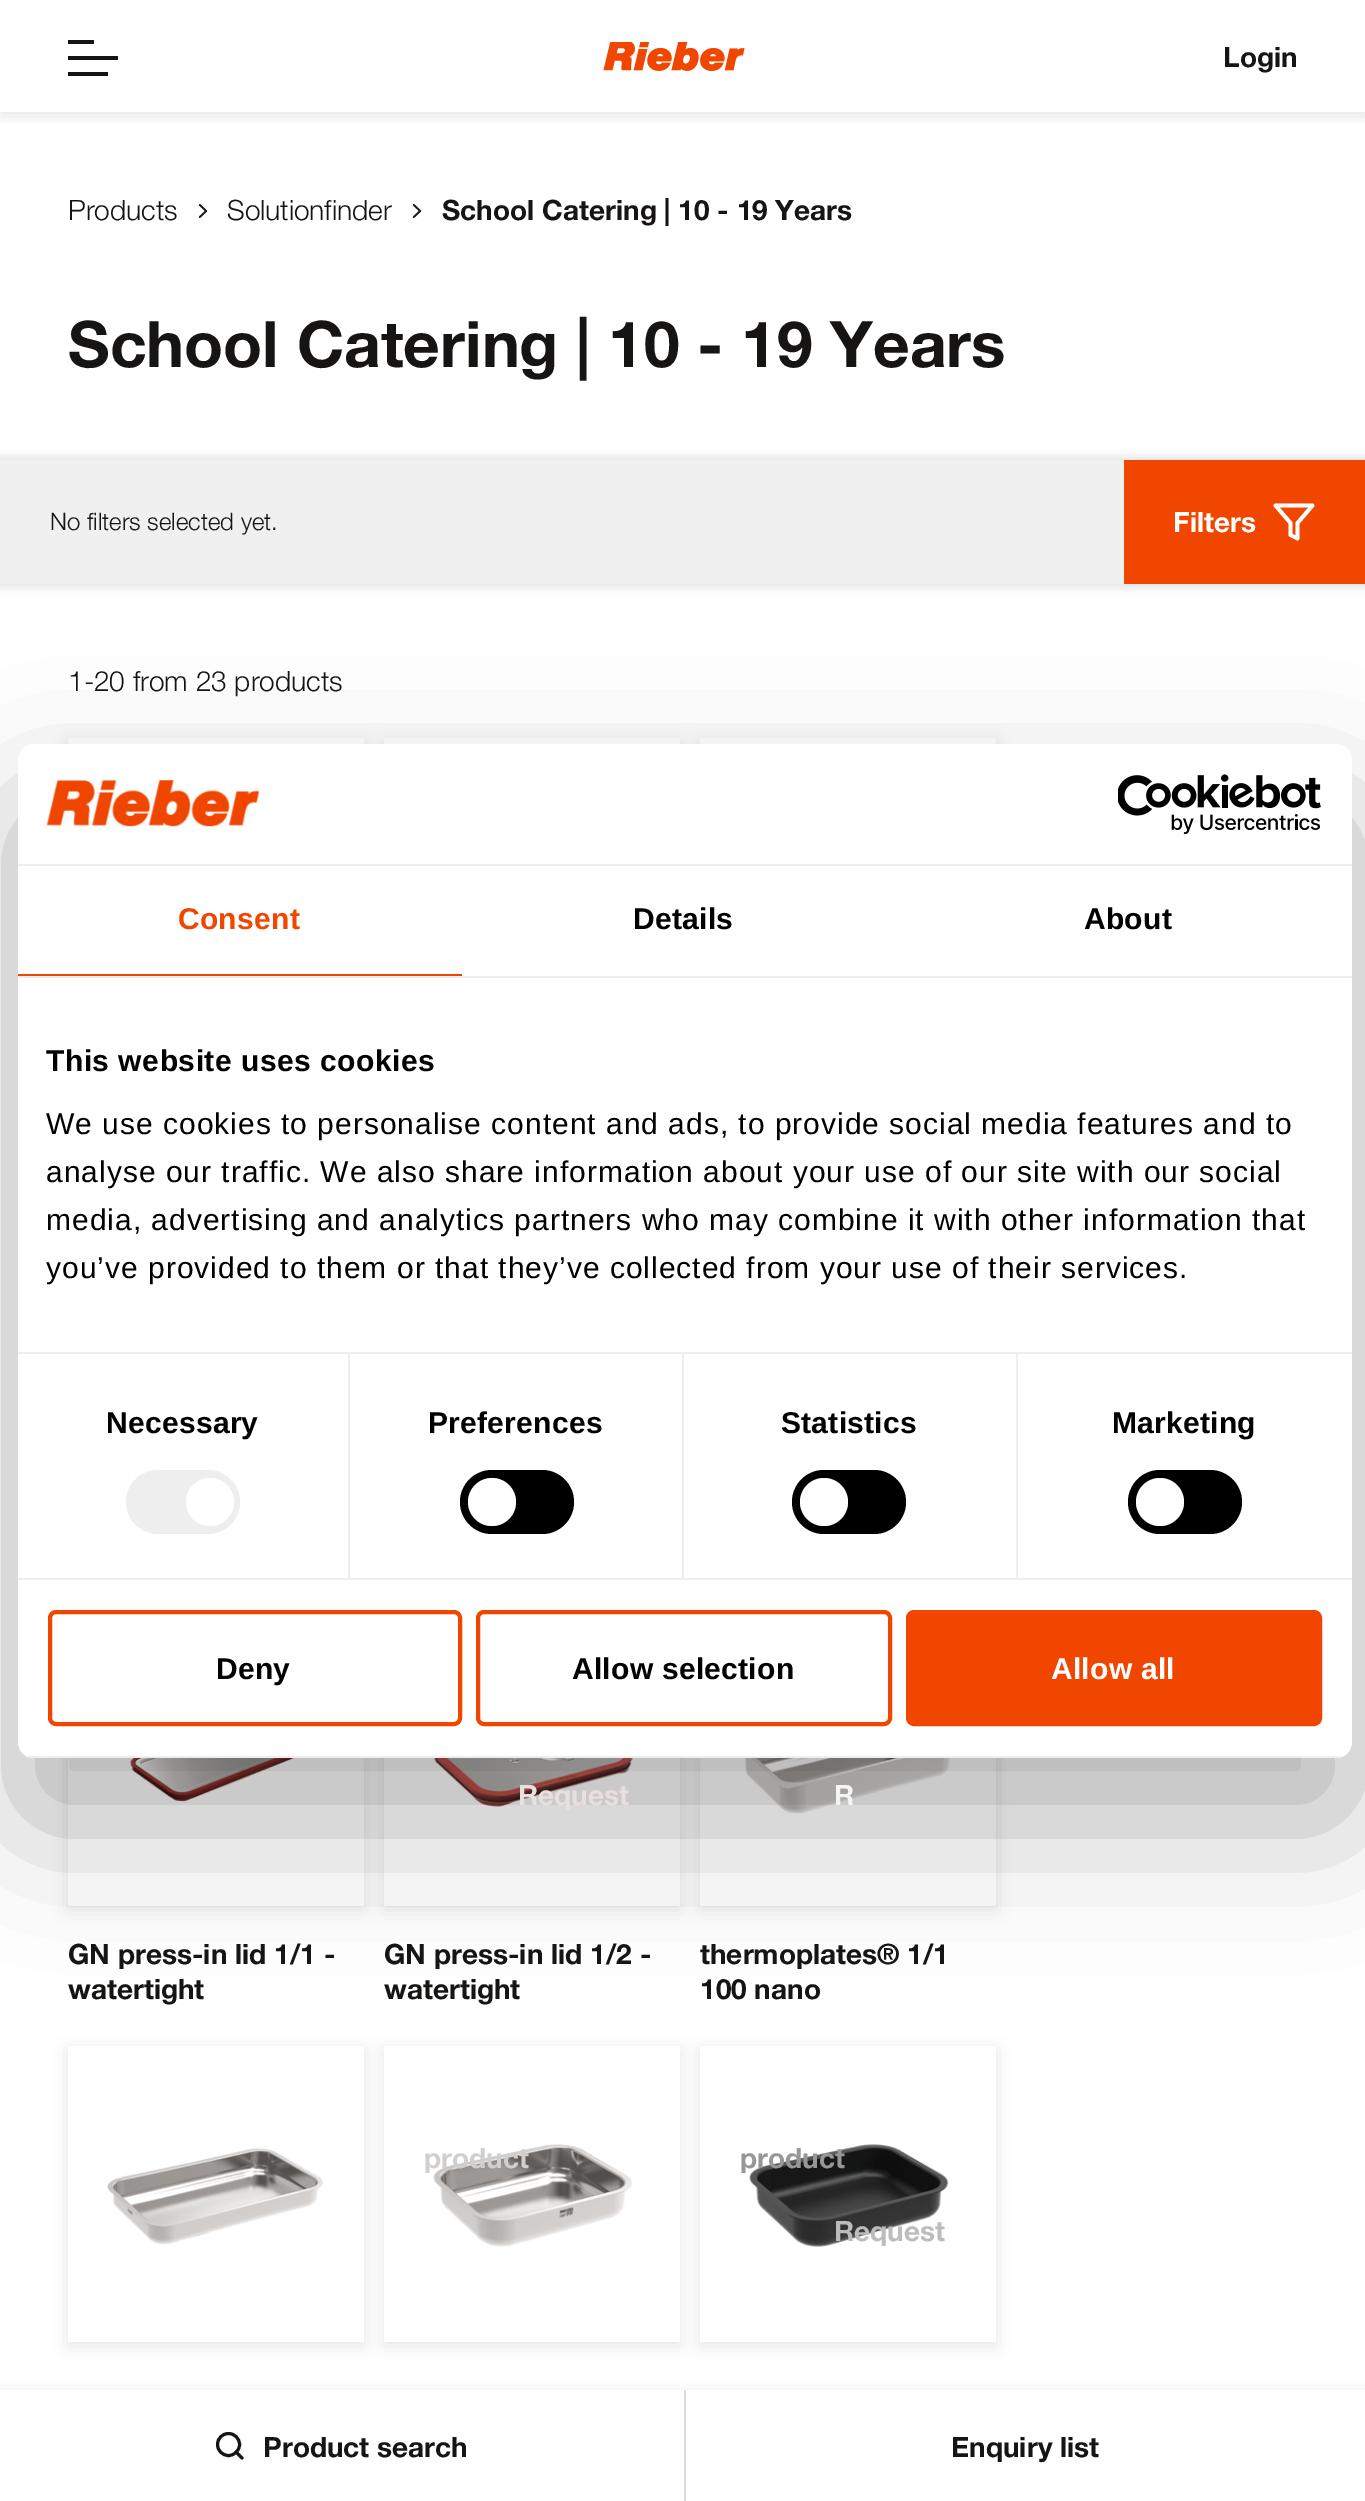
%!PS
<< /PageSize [1365 2501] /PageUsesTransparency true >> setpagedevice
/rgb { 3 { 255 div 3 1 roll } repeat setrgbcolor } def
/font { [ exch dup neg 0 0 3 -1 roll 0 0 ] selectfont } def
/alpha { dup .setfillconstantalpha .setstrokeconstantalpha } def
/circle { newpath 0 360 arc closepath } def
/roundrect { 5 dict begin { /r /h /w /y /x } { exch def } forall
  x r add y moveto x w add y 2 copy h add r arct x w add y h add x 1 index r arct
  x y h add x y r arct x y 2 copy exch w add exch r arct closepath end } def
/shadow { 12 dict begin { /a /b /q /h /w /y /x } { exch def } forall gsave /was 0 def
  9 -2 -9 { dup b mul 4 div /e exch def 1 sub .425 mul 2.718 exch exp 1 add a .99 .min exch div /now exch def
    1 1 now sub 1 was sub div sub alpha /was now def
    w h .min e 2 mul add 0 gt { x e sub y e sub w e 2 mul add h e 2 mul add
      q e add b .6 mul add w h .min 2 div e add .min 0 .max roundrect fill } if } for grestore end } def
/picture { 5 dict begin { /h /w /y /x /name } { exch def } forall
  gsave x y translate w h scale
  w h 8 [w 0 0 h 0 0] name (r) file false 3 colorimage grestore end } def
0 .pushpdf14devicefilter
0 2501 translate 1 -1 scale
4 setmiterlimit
255 255 255 rgb
0 0 1365 2501 rectfill
gsave
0 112 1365 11 rectclip
0 0 0 rgb
0 4 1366 112 0 8 0.1 shadow
grestore
23 21 20 rgb
68 40 moveto 94 40 lineto 94 44 lineto 68 44 lineto closepath 68 56 moveto 118 56 lineto 118 60 lineto 68 60 lineto closepath 68 72 moveto 108 72 lineto 108 76 lineto 68 76 lineto closepath fill
(img/1.rgb) 603 42 142 29 picture
(img/2.rgb) 198 204 10 14 picture
(img/2.rgb) 412 204 10 14 picture
0 0 0 rgb
-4 456 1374 132 0 4 0.1 shadow
240 240 240 rgb
0 460 1124 124 rectfill
240 70 0 rgb
1124 460 241 124 rectfill
255 255 255 rgb
3.7 setlinewidth
1 setlinecap
1 setlinejoin
1312.5 505.5 moveto 1275.5 505.5 lineto 1290.5 523 lineto 1290.5 535 lineto 1297.5 538.5 lineto 1297.5 523 lineto closepath stroke
gsave
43 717 moveto 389 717 lineto 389 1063 lineto 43 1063 lineto closepath 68 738 moveto 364 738 lineto 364 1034 lineto 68 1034 lineto closepath eoclip newpath
0 0 0 rgb
68 742 296 296 0 8 0.1 shadow
grestore
gsave
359 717 moveto 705 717 lineto 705 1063 lineto 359 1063 lineto closepath 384 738 moveto 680 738 lineto 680 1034 lineto 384 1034 lineto closepath eoclip newpath
0 0 0 rgb
384 742 296 296 0 8 0.1 shadow
grestore
gsave
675 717 moveto 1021 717 lineto 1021 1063 lineto 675 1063 lineto closepath 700 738 moveto 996 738 lineto 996 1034 lineto 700 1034 lineto closepath eoclip newpath
0 0 0 rgb
700 742 296 296 0 8 0.1 shadow
grestore
gsave
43 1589 moveto 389 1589 lineto 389 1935 lineto 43 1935 lineto closepath 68 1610 moveto 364 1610 lineto 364 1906 lineto 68 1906 lineto closepath eoclip newpath
0 0 0 rgb
68 1614 296 296 0 8 0.1 shadow
grestore
(img/3.rgb) 130 1758 164 44 picture
gsave
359 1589 moveto 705 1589 lineto 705 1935 lineto 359 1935 lineto closepath 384 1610 moveto 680 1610 lineto 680 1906 lineto 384 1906 lineto closepath eoclip newpath
0 0 0 rgb
384 1614 296 296 0 8 0.1 shadow
grestore
(img/4.rgb) 433 1758 201 49 picture
gsave
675 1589 moveto 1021 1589 lineto 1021 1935 lineto 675 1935 lineto closepath 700 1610 moveto 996 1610 lineto 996 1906 lineto 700 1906 lineto closepath eoclip newpath
0 0 0 rgb
700 1614 296 296 0 8 0.1 shadow
grestore
(img/5.rgb) 744 1758 206 56 picture
gsave
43 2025 moveto 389 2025 lineto 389 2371 lineto 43 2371 lineto closepath 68 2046 moveto 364 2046 lineto 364 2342 lineto 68 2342 lineto closepath eoclip newpath
0 0 0 rgb
68 2050 296 296 0 8 0.1 shadow
grestore
(img/6.rgb) 107 2148 216 97 picture
gsave
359 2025 moveto 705 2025 lineto 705 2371 lineto 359 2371 lineto closepath 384 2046 moveto 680 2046 lineto 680 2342 lineto 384 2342 lineto closepath eoclip newpath
0 0 0 rgb
384 2050 296 296 0 8 0.1 shadow
grestore
(img/7.rgb) 433 2144 199 103 picture
gsave
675 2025 moveto 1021 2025 lineto 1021 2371 lineto 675 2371 lineto closepath 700 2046 moveto 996 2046 lineto 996 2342 lineto 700 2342 lineto closepath eoclip newpath
0 0 0 rgb
700 2050 296 296 0 8 0.1 shadow
grestore
(img/8.rgb) 749 2144 200 103 picture
0 0 0 rgb
0 2394 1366 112 0 8 0.1 shadow
255 255 255 rgb
0 2390 1365 111 rectfill
23 21 20 rgb
3 setlinewidth
0 setlinecap
0 setlinejoin
228.5 2444.5 11 circle stroke
1 setlinecap
1 setlinejoin
242 2458 moveto 236 2452 lineto stroke
219 219 219 rgb
684 2390 2 111 rectfill
0 0 0 rgb
18 808 1334 1014 16 68 0.3 shadow
255 255 255 rgb
18 744 1334 1014 16 roundrect fill
238 238 238 rgb
18 864 1334 2 rectfill
(img/9.rgb) 46 780 213 47 picture
(img/10.rgb) 1118 774 203 60 picture
[
  [18 976 1334 2 238 238 238]
  [18 974 444 2 240 70 0]
  [18 1352 1334 2 238 238 238]
  [18 1578 1334 2 238 238 238]
  [348 1354 2 224 238 238 238]
] { aload pop rgb rectfill } forall
126 1470 114 64 32 roundrect fill
255 255 255 rgb
210 1502 24 circle fill
238 238 238 rgb
682 1354 2 224 rectfill
0 0 0 rgb
460 1470 114 64 32 roundrect fill
255 255 255 rgb
492 1502 24 circle fill
238 238 238 rgb
1016 1354 2 224 rectfill
0 0 0 rgb
792 1470 114 64 32 roundrect fill
255 255 255 rgb
824 1502 24 circle fill
0 0 0 rgb
1128 1470 114 64 32 roundrect fill
255 255 255 rgb
1160 1502 24 circle fill
gsave
18 744 1334 1014 16 roundrect clip newpath
238 238 238 rgb
18 1756 1334 2 rectfill
grestore
240 70 0 rgb
4 setlinewidth
0 setlinecap
0 setlinejoin
50 1612 410 112 6 roundrect stroke
478 1612 412 112 6 roundrect stroke
908 1612 412 112 6 roundrect gsave fill grestore
stroke
/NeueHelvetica-Bold 28 font
23 21 20 rgb
1223 67 moveto (Login) show
/NeueHelvetica-Light 28 font
68 220 moveto (Products) show
227 220 moveto (Solutionfinder) show
/NeueHelvetica-Bold 28 font
442 220 moveto (School Catering | 10 - 19 Years) show
/NeueHelvetica-Bold 64 font
68 367 moveto (School Catering | 10 - 19 Years) show
/NeueHelvetica-Light 24 font
50 530 moveto (No filters selected yet.) show
/NeueHelvetica-Bold 28 font
255 255 255 rgb
1173 532 moveto (Filters) show
/NeueHelvetica-Light 28 font
23 21 20 rgb
68 691 moveto (1-20 from 23 products) show
/NeueHelvetica-Bold 28 font
68 1964 moveto (GN press-in lid 1/1 -) show
68 1999 moveto (watertight) show
233 223 222 rgb
518 1805 moveto (Request) show
23 21 20 rgb
384 1964 moveto (GN press-in lid 1/2 -) show
384 1999 moveto (watertight) show
245 245 244 rgb
834 1805 moveto (R) show
23 21 20 rgb
700 1964 moveto (thermoplates® 1/1) show
700 1999 moveto (100 nano) show
208 207 206 rgb
424 2168 moveto (product) show
151 151 151 rgb
740 2168 moveto (product) show
188 188 188 rgb
834 2241 moveto (Request) show
23 21 20 rgb
263 2457 moveto (Product search) show
951 2457 moveto (Enquiry list) show
/LiberationSans-Bold 30 font
240 70 0 rgb
178 929 moveto 0.25 0 (Consent) ashow
0 0 0 rgb
633 929 moveto 0.25 0 (Details) ashow
1084 929 moveto 0.25 0 (About) ashow
46 1071 moveto 0.5 0 (This website uses cookies) ashow
/LiberationSans-Regular 30 font
46 1134 moveto 1 0 (We use cookies to personalise content and ads, to provide social media features and to) ashow
46 1182 moveto 1 0 (analyse our traffic. We also share information about your use of our site with our social) ashow
46 1230 moveto 1 0 (media, advertising and analytics partners who may combine it with other information that) ashow
46 1278 moveto 1 0 (you’ve provided to them or that they’ve collected from your use of their services.) ashow
/LiberationSans-Bold 30 font
106 1433 moveto 0.25 0 (Necessary) ashow
428 1433 moveto 0.25 0 (Preferences) ashow
781 1433 moveto 0.25 0 (Statistics) ashow
1112 1433 moveto 0.25 0 (Marketing) ashow
216 1679 moveto 0.25 0 (Deny) ashow
572 1679 moveto 0.25 0 (Allow selection) ashow
255 255 255 rgb
1051 1679 moveto 0.25 0 (Allow all) ashow
.poppdf14devicefilter showpage
